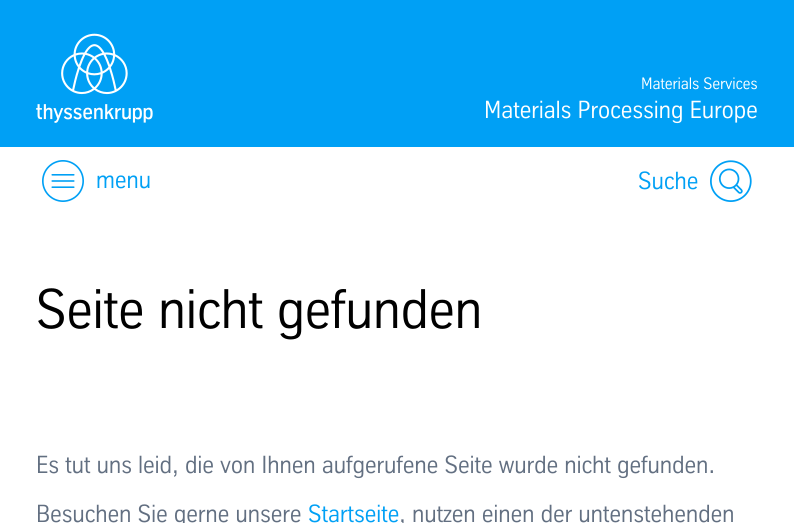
%!PS
<< /PageSize [794 523] >> setpagedevice
/rgb { 3 { 255 div 3 1 roll } repeat setrgbcolor } def
/picture { 5 dict begin { /h /w /y /x /name } { exch def } forall
  gsave x y translate w h scale
  w h 8 [w 0 0 h 0 0] name (r) file false 3 colorimage grestore end } def
0 523 translate 1 -1 scale
4 setmiterlimit
255 255 255 rgb
0 0 794 523 rectfill
0 160 245 rgb
0 0 794 147 rectfill
(img/1.rgb) 36 33 117 90 picture
(img/2.rgb) 642 77 115 13 picture
(img/3.rgb) 486 100 271 24 picture
(img/4.rgb) 42 160 42 42 picture
(img/5.rgb) 97 175 53 14 picture
(img/6.rgb) 639 171 59 19 picture
(img/7.rgb) 710 160 42 42 picture
(img/8.rgb) 38 288 441 52 picture
(img/9.rgb) 38 455 675 24 picture
(img/10.rgb) 38 504 263 19 picture
(img/11.rgb) 309 504 90 19 picture
(img/12.rgb) 401 504 332 19 picture
showpage
